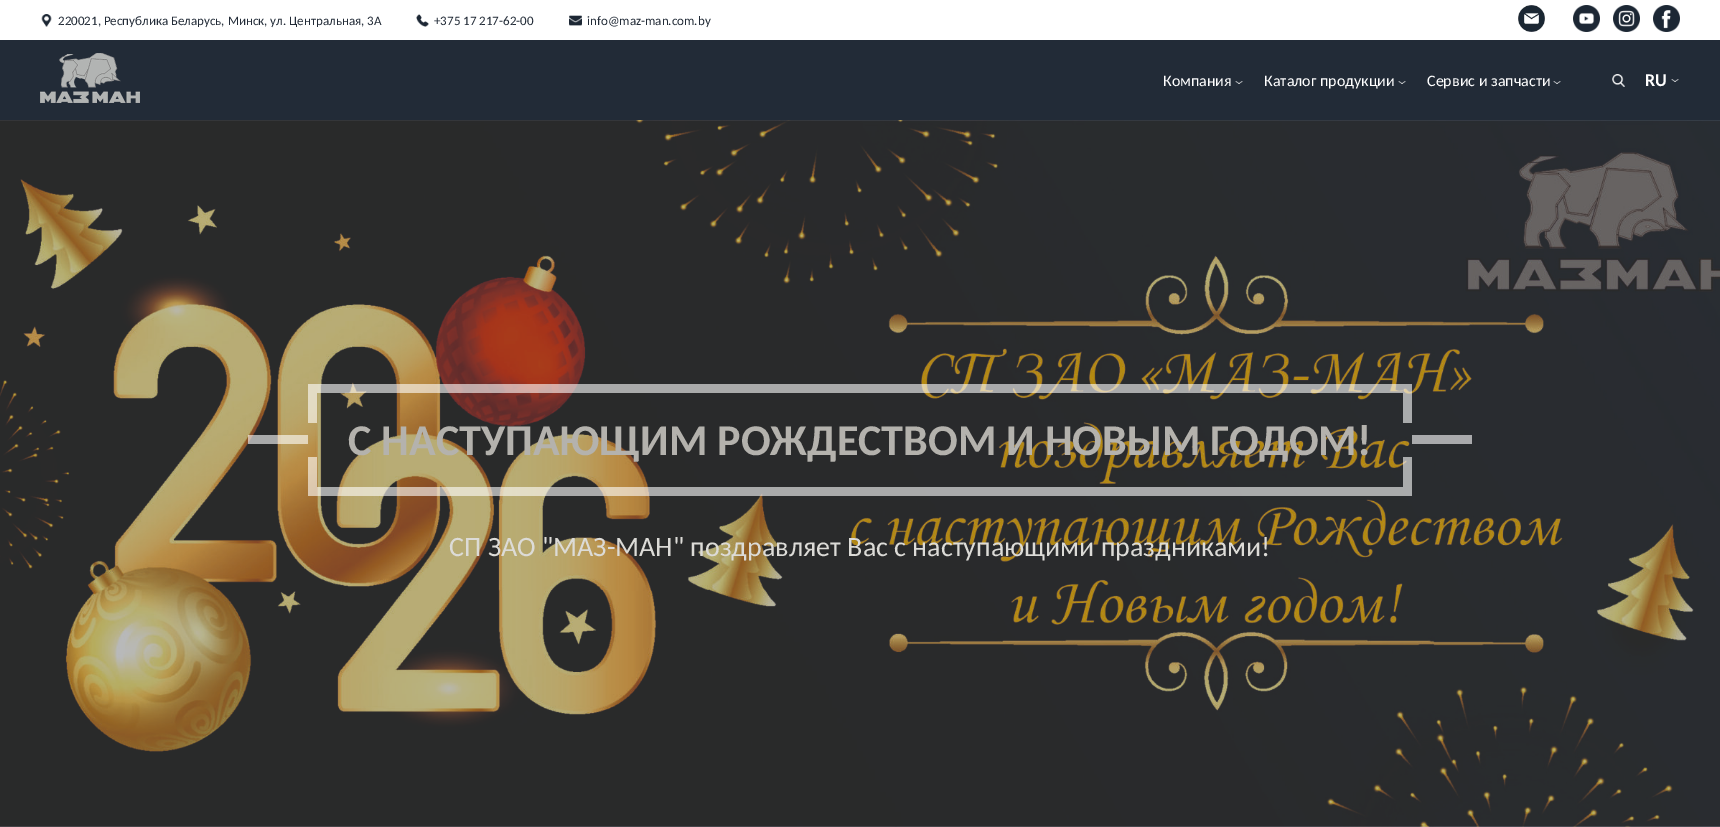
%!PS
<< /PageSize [1720 827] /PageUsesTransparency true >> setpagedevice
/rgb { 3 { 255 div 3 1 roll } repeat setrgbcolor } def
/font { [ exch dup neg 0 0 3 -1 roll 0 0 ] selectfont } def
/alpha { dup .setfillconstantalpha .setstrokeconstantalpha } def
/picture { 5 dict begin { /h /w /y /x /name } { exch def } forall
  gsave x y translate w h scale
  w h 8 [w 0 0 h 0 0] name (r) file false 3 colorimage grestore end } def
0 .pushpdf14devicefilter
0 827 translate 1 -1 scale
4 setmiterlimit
255 255 255 rgb
0 0 1720 827 rectfill
(img/1.rgb) 41 14 11 13 picture
(img/2.rgb) 416 14 13 13 picture
(img/3.rgb) 569 15 13 11 picture
(img/4.rgb) 1518 5 27 27 picture
(img/5.rgb) 1573 5 27 27 picture
(img/6.rgb) 1613 5 27 27 picture
(img/7.rgb) 1653 5 27 27 picture
34 43 55 rgb
0 40 1720 80 rectfill
(img/8.rgb) 40 53 100 50 picture
(img/9.rgb) 1235 81 8 3 picture
(img/9.rgb) 1398 81 8 3 picture
(img/10.rgb) 1553 81 8 3 picture
(img/11.rgb) 1612 74 13 13 picture
(img/10.rgb) 1671 79 8 3 picture
(img/12.rgb) 0 120 1720 707 picture
0.6 alpha
[
  [248 435 60 9 255 255 255]
  [308 384 1104 9 255 255 255]
  [308 487 1104 9 255 255 255]
  [308 393 9 30 255 255 255]
  [1403 393 9 30 255 255 255]
] { aload pop rgb rectfill } forall
1 alpha
[
  [1412 435 60 9 169 170 172]
] { aload pop rgb rectfill } forall
0.6 alpha
[
  [308 457 9 30 255 255 255]
  [1403 457 9 30 255 255 255]
] { aload pop rgb rectfill } forall
/Carlito-Regular 13 font
1 alpha
34 43 55 rgb
[
  [(220021, Республика Беларусь, Минск, ул. Центральная, 3A) 58 25]
  [(+375 17 217-62-00) 434 25]
  [(info@maz-man.com.by) 587 25]
] { aload pop moveto show } forall
/Carlito-Regular 16 font
255 255 255 rgb
[
  [(Компания) 1163 86]
  [(Каталог продукции) 1264 86]
  [(Сервис и запчасти) 1427 86]
] { aload pop moveto show } forall
/Carlito-Bold 18 font
1645 86 moveto (RU) show
/Carlito-Bold 44 font
180 178 173 rgb
348 455 moveto (С НАСТУПАЮЩИМ РОЖДЕСТВОМ И НОВЫМ ГОДОМ!) show
/Carlito-Regular 28 font
220 219 215 rgb
449 556 moveto (СП ЗАО "МАЗ-МАН" поздравляет Вас с наступающими праздниками!) show
.poppdf14devicefilter showpage
